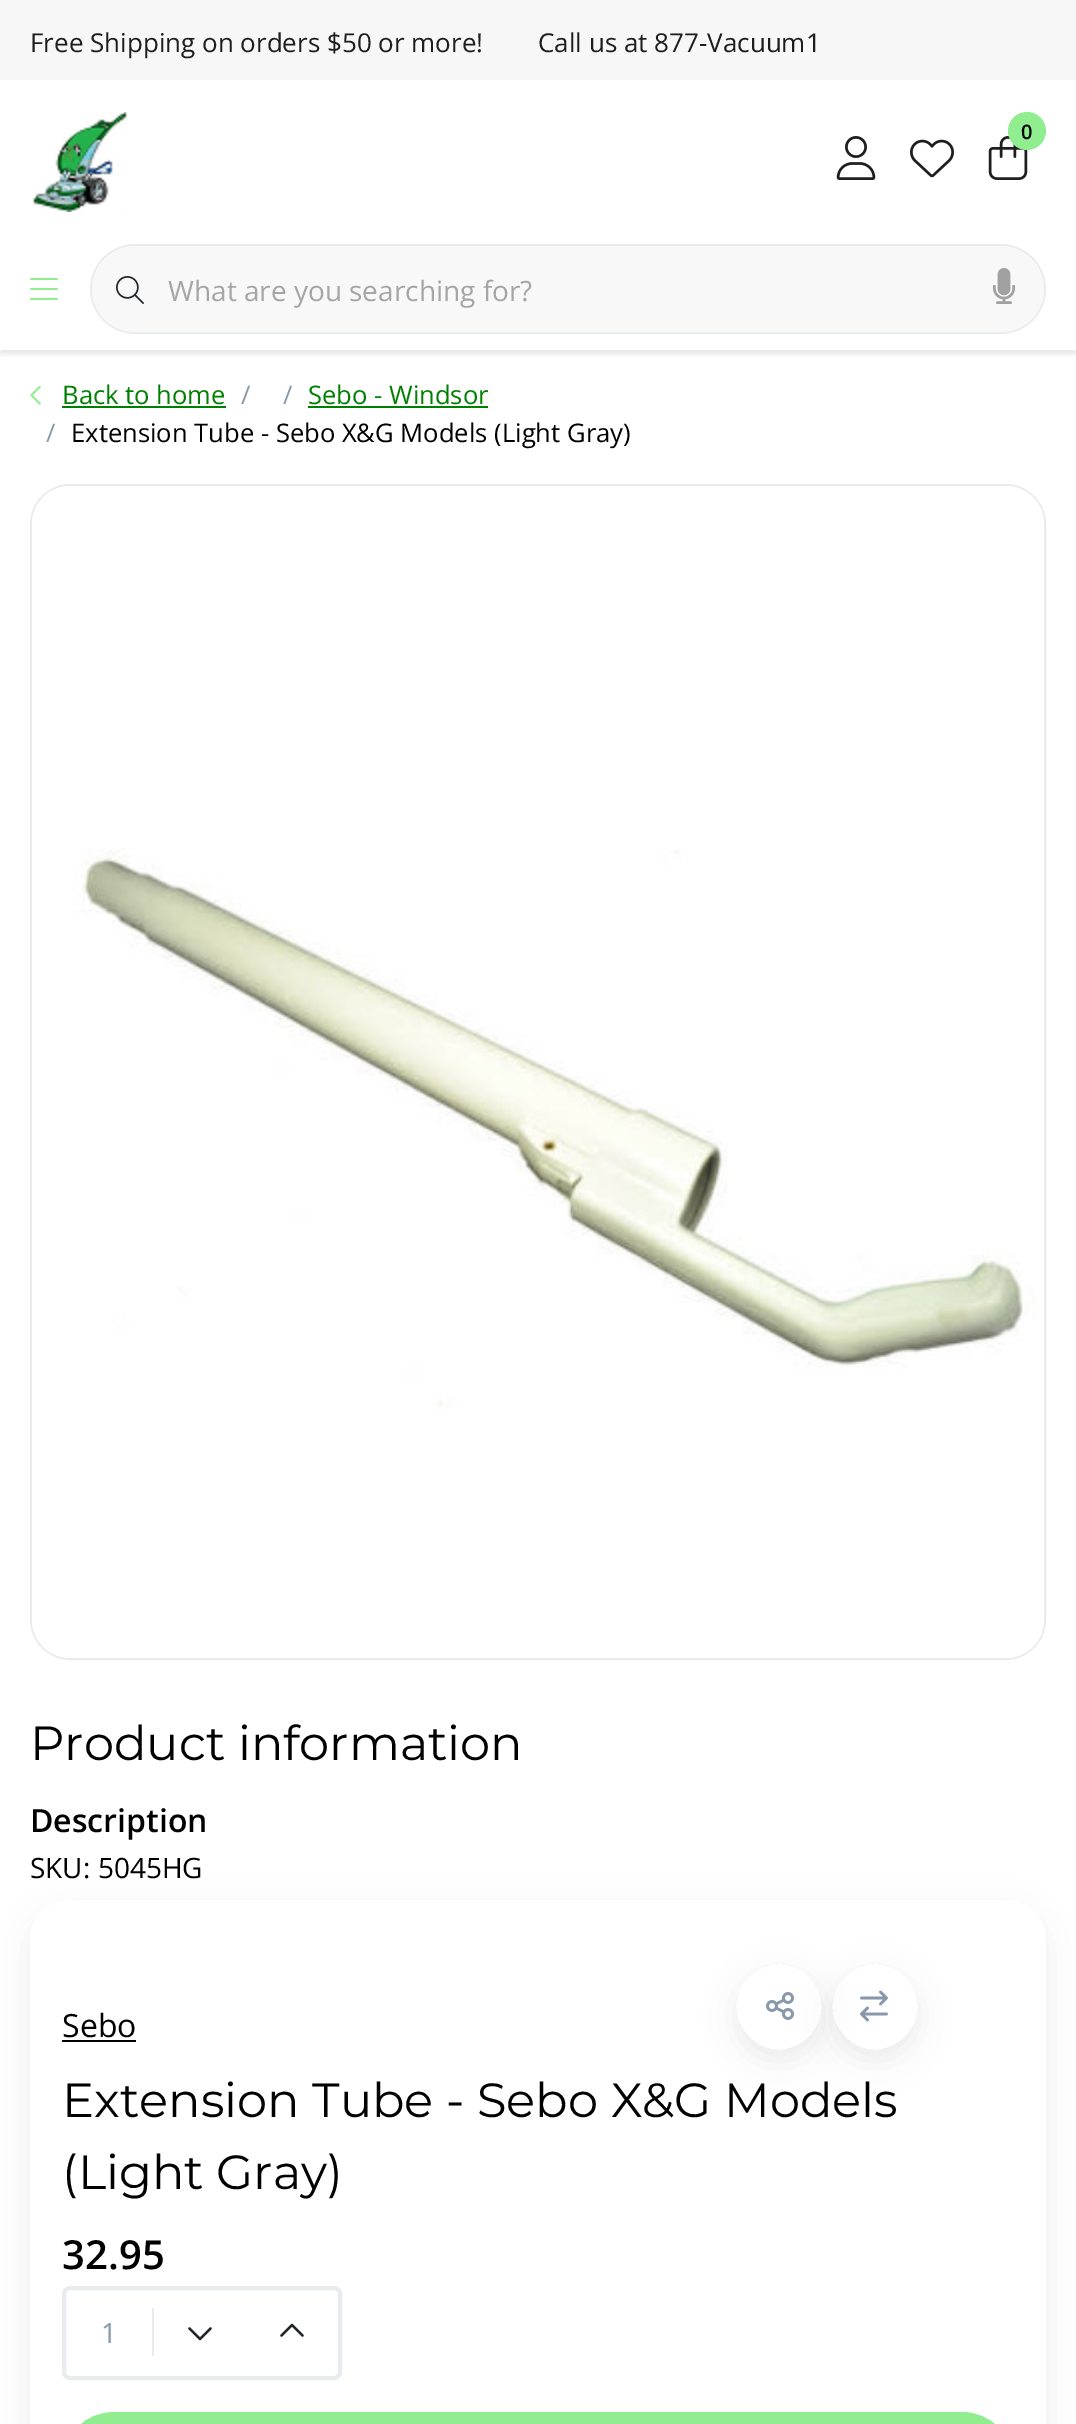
%!PS
<< /PageSize [1076 2424] /PageUsesTransparency true >> setpagedevice
/rgb { 3 { 255 div 3 1 roll } repeat setrgbcolor } def
/font { [ exch dup neg 0 0 3 -1 roll 0 0 ] selectfont } def
/alpha { dup .setfillconstantalpha .setstrokeconstantalpha } def
/circle { newpath 0 360 arc closepath } def
/roundrect { 5 dict begin { /r /h /w /y /x } { exch def } forall
  x r add y moveto x w add y 2 copy h add r arct x w add y h add x 1 index r arct
  x y h add x y r arct x y 2 copy exch w add exch r arct closepath end } def
/shadow { 12 dict begin { /a /b /q /h /w /y /x } { exch def } forall gsave /was 0 def
  9 -2 -9 { dup b mul 4 div /e exch def 1 sub .425 mul 2.718 exch exp 1 add a .99 .min exch div /now exch def
    1 1 now sub 1 was sub div sub alpha /was now def
    w h .min e 2 mul add 0 gt { x e sub y e sub w e 2 mul add h e 2 mul add
      q e add b .6 mul add w h .min 2 div e add .min 0 .max roundrect fill } if } for grestore end } def
/picture { 5 dict begin { /h /w /y /x /name } { exch def } forall
  gsave x y translate w h scale
  w h 8 [w 0 0 h 0 0] name (r) file false 3 colorimage grestore end } def
0 .pushpdf14devicefilter
0 2424 translate 1 -1 scale
4 setmiterlimit
255 255 255 rgb
0 0 1076 2424 rectfill
gsave
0 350 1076 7 rectclip
0 0 0 rgb
0 4 1076 350 0 3 0.1 shadow
grestore
247 247 247 rgb
0 0 1076 80 rectfill
(img/1.rgb) 33 112 95 100 picture
(img/2.rgb) 988 136 40 44 picture
144 238 144 rgb
1027 131 19 circle fill
(img/3.rgb) 836 136 40 44 picture
(img/4.rgb) 910 139 44 39 picture
(img/5.rgb) 30 278 28 22 picture
233 236 239 rgb
2 setlinewidth
91 245 954 88 44 roundrect stroke
248 248 248 rgb
135 246 moveto 168 246 lineto 168 332 lineto 135 332 lineto 111.5 332 92 312.5 92 289 curveto 92 265.5 111.5 246 135 246 curveto closepath fill
(img/6.rgb) 116 276 28 28 picture
168 246 moveto 1001 246 lineto 1024.5 246 1044 265.5 1044 289 curveto 1044 312.5 1024.5 332 1001 332 curveto 168 332 lineto closepath fill
(img/7.rgb) 992 268 24 36 picture
(img/8.rgb) 30 385 11 20 picture
0 128 0 rgb
62 406 164 2 rectfill
308 406 180 2 rectfill
233 236 239 rgb
31 485 1014 1174 39 roundrect stroke
(img/9.rgb) 32 486 1012 1172 picture
0 0 0 rgb
30 1910 1016 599 40 15 0.07 shadow
255 255 255 rgb
30 1900 1016 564 40 roundrect fill
0 0 0 rgb
62 2040 74 2 rectfill
gsave
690 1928 moveto 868 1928 lineto 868 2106 lineto 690 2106 lineto closepath 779 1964 moveto 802.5 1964 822 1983.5 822 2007 curveto 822 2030.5 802.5 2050 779 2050 curveto 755.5 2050 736 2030.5 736 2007 curveto 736 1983.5 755.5 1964 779 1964 curveto closepath eoclip newpath
736 1974 86 86 43 15 0.07 shadow
grestore
(img/10.rgb) 766 1992 28 28 picture
gsave
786 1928 moveto 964 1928 lineto 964 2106 lineto 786 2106 lineto closepath 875 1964 moveto 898.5 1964 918 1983.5 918 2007 curveto 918 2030.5 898.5 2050 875 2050 curveto 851.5 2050 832 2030.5 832 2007 curveto 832 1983.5 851.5 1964 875 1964 curveto closepath eoclip newpath
832 1974 86 86 43 15 0.07 shadow
grestore
(img/11.rgb) 860 1990 28 32 picture
233 236 239 rgb
4 setlinewidth
64 2288 276 90 6 roundrect stroke
152 2308 2 48 rectfill
(img/12.rgb) 188 2327 24 14 picture
(img/13.rgb) 280 2323 24 14 picture
144 238 144 rgb
63 2413 950 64 51 roundrect gsave fill grestore
2 setlinewidth
stroke
/OpenSans-Regular 26 font
30 30 30 rgb
30 52 moveto (Free Shipping on orders $50 or more!) show
538 52 moveto (Call us at 877-Vacuum1) show
/OpenSans-SemiBold 20 font
0 0 0 rgb
1021 139 moveto (0) show
/OpenSans-Regular 28 font
165 165 165 rgb
168 301 moveto (What are you searching for?) show
/OpenSans-Regular 25.6 font
0 128 0 rgb
62 404 moveto (Back to home) show
136 152 170 rgb
241 404 moveto (/) show
283 404 moveto (/) show
0 128 0 rgb
308 404 moveto (Sebo - Windsor) show
136 152 170 rgb
46 442 moveto (/) show
0 0 0 rgb
71 442 moveto (Extension Tube - Sebo X&G Models \(Light Gray\)) show
/Montserrat-Regular 48 font
30 1760 moveto (Product information) show
/OpenSans-SemiBold 32 font
30 1832 moveto (Description) show
/OpenSans-Regular 28 font
30 1878 moveto (SKU: 5045HG) show
/OpenSans-Regular 32 font
62 2037 moveto (Sebo) show
/Montserrat-Regular 48 font
62 2117 moveto (Extension Tube - Sebo X&G Models) show
62 2189 moveto (\(Light Gray\)) show
/OpenSans-SemiBold 40 font
62 2269 moveto (32.95) show
/OpenSans-Regular 28 font
136 152 170 rgb
101 2343 moveto (1) show
.poppdf14devicefilter showpage
